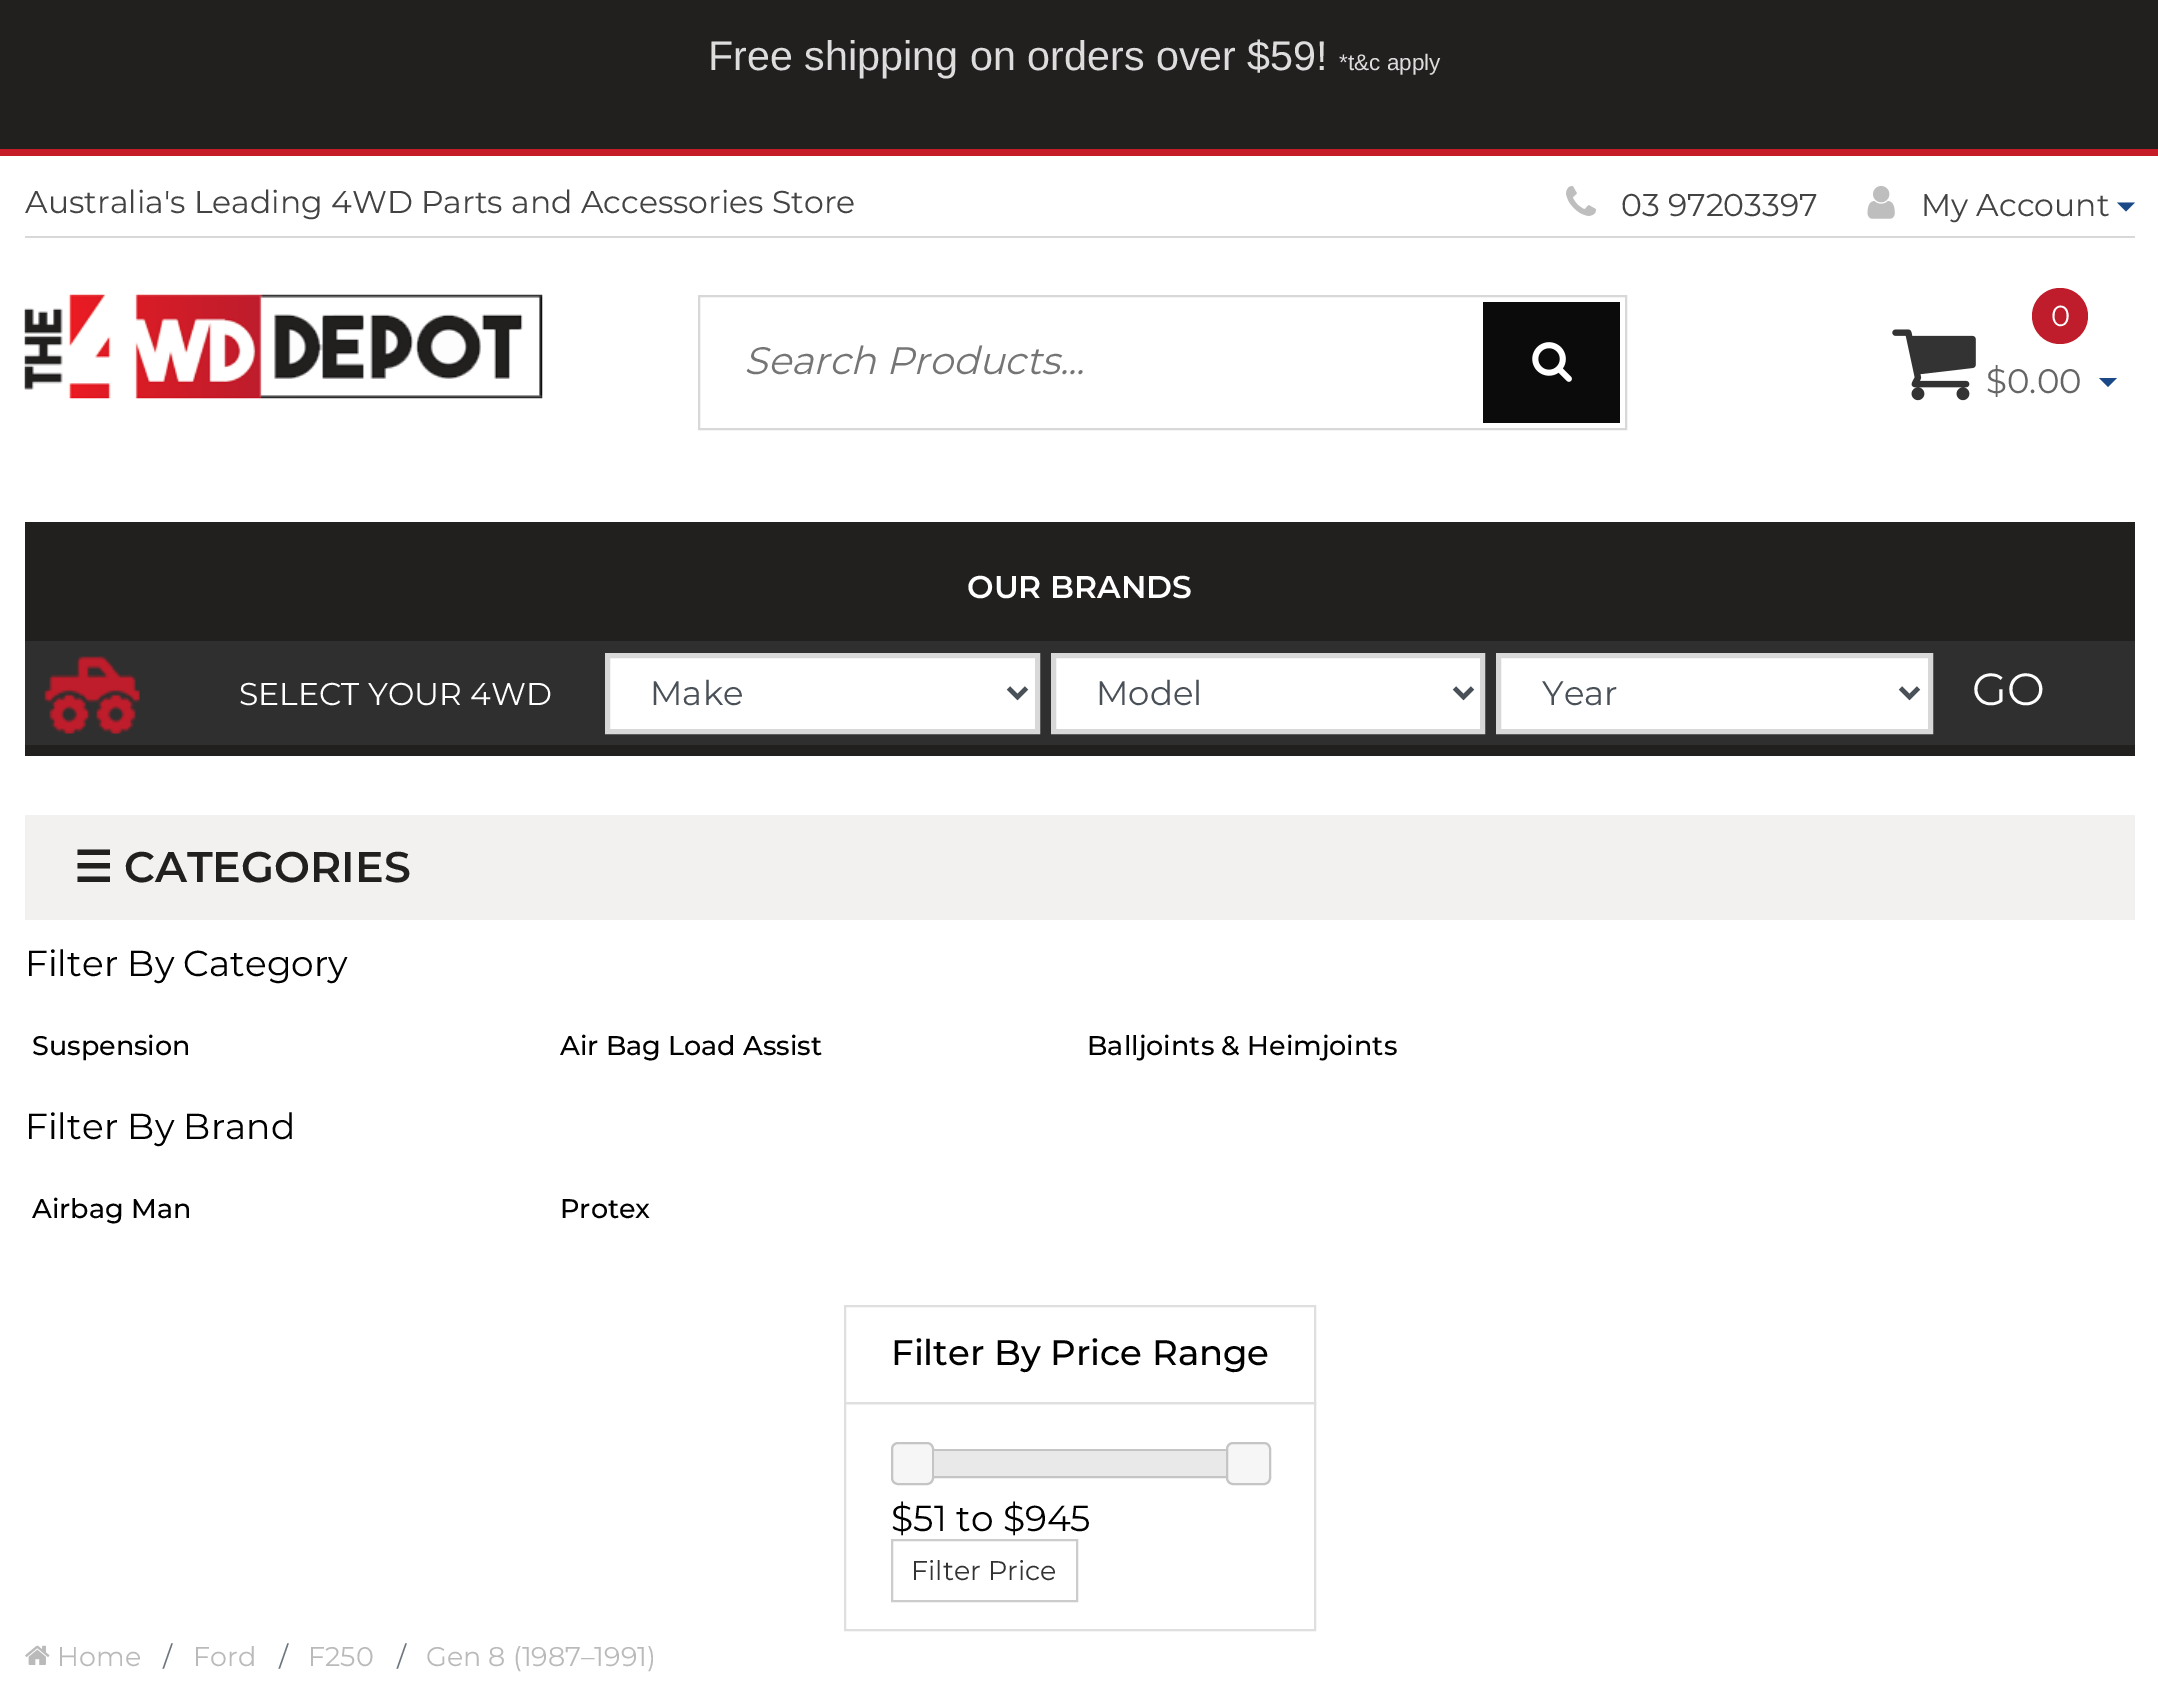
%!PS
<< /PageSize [2158 1687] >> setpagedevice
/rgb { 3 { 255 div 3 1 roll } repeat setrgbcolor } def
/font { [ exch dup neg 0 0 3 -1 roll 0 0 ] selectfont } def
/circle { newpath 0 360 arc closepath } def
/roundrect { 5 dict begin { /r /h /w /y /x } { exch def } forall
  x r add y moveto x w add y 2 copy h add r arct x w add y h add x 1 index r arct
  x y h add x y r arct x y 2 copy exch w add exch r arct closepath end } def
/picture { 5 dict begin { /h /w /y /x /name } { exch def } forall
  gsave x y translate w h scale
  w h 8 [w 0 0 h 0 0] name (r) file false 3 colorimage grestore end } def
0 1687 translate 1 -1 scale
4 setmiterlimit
255 255 255 rgb
0 0 2158 1687 rectfill
[
  [0 0 2158 149 34 31 31]
  [0 149 2158 7 198 28 42]
  [25 236 2110 2 216 216 216]
] { aload pop rgb rectfill } forall
(img/1.rgb) 1566 186 30 30 picture
(img/2.rgb) 1867 186 28 33 picture
27 73 135 rgb
2117 202.5 moveto 2135 202.5 lineto 2126 211.5 lineto closepath fill
(img/3.rgb) 24 294 519 105 picture
216 216 216 rgb
2 setlinewidth
699 296 927 133 rectstroke
12 11 11 rgb
1483 302 137 121 rectfill
(img/4.rgb) 1532 342 40 40 picture
191 29 43 rgb
2060 316 28 circle fill
(img/5.rgb) 1892 329 84 72 picture
27 73 135 rgb
2099 378 moveto 2117 378 lineto 2108 387 lineto closepath fill
34 31 31 rgb
25 522 2110 234 rectfill
47 47 47 rgb
25 641 2110 104 rectfill
(img/6.rgb) 44 656 96 78 picture
255 255 255 rgb
607.5 655.5 moveto 1037.5 655.5 lineto 1037.5 731.5 lineto 607.5 731.5 lineto closepath gsave fill grestore
216 216 216 rgb
5 setlinewidth
stroke
73 80 87 rgb
4.5 setlinewidth
1008.5 688 moveto 1017.5 697 lineto 1026.5 688 lineto stroke
255 255 255 rgb
1053.5 655.5 moveto 1482.5 655.5 lineto 1482.5 731.5 lineto 1053.5 731.5 lineto closepath gsave fill grestore
216 216 216 rgb
5 setlinewidth
stroke
73 80 87 rgb
4.5 setlinewidth
1454.5 688 moveto 1463.5 697 lineto 1472.5 688 lineto stroke
255 255 255 rgb
1498.5 655.5 moveto 1930.5 655.5 lineto 1930.5 731.5 lineto 1498.5 731.5 lineto closepath gsave fill grestore
216 216 216 rgb
5 setlinewidth
stroke
73 80 87 rgb
4.5 setlinewidth
1900.5 688 moveto 1909.5 697 lineto 1918.5 688 lineto stroke
243 240 240 rgb
25 815 2110 105 rectfill
223 223 223 rgb
2 setlinewidth
845 1306 470 97 rectstroke
845 1403 470 227 rectstroke
197 197 197 rgb
910 1450 340 27 rectstroke
246 246 246 rgb
892 1443 41 41 6 roundrect gsave fill grestore
197 197 197 rgb
stroke
233 233 233 rgb
934 1451 292 25 rectfill
246 246 246 rgb
1227 1443 43 41 6 roundrect gsave fill grestore
197 197 197 rgb
stroke
204 204 204 rgb
892 1540 185 61 rectstroke
(img/7.rgb) 25 1645 25 20 picture
/LiberationSans-Regular 41.3 font
221 221 221 rgb
708 70 moveto (Free shipping on orders over $59!) show
/LiberationSans-Regular 22.5 font
1339 70 moveto (*t&c apply) show
/Montserrat-Regular 31.5 font
67 67 67 rgb
[
  [(Australia's Leading 4WD Parts and Accessories Store) 25 213]
  [(03 97203397) 1621 216]
  [(My Account) 1921 216]
] { aload pop moveto show } forall
/Montserrat-Italic 38.25 font
117 117 117 rgb
744 374 moveto (Search Products...) show
/Montserrat-Regular 29 font
255 255 255 rgb
2051 326 moveto (0) show
/Montserrat-Regular 34 font
101 101 101 rgb
1986 393 moveto ($0.00) show
/Montserrat-SemiBold 31.5 font
255 255 255 rgb
967 598 moveto (OUR BRANDS) show
/Montserrat-Regular 31.5 font
239 705 moveto (SELECT YOUR 4WD) show
/Montserrat-Regular 34 font
73 80 87 rgb
[
  [(Make) 650 705]
  [(Model) 1096 705]
  [(Year) 1542 705]
] { aload pop moveto show } forall
/Montserrat-Regular 45 font
255 255 255 rgb
1972 705 moveto (GO) show
/DejaVuSans-Bold 42.75 font
34 31 31 rgb
74 882 moveto (☰) show
/Montserrat-SemiBold 42.75 font
124 882 moveto (CATEGORIES) show
/Montserrat-Regular 36 font
0 0 0 rgb
25 976 moveto (Filter By Category) show
/Montserrat-Medium 27 font
[
  [(Suspension) 32 1055]
  [(Air Bag Load Assist) 560 1055]
  [(Balljoints & Heimjoints) 1087 1055]
] { aload pop moveto show } forall
/Montserrat-Regular 36 font
25 1139 moveto (Filter By Brand) show
/Montserrat-Medium 27 font
32 1218 moveto (Airbag Man) show
560 1218 moveto (Protex) show
/Montserrat-Medium 35.5 font
891 1365 moveto (Filter By Price Range) show
/Montserrat-Regular 36 font
891 1531 moveto ($51 to $945) show
/Montserrat-Regular 27 font
51 51 51 rgb
911 1580 moveto (Filter Price) show
186 186 186 rgb
57 1666 moveto (Home) show
108 117 125 rgb
163 1666 moveto (/) show
186 186 186 rgb
193 1666 moveto (Ford) show
108 117 125 rgb
279 1666 moveto (/) show
186 186 186 rgb
308 1666 moveto (F250) show
108 117 125 rgb
397 1666 moveto (/) show
186 186 186 rgb
426 1666 moveto (Gen 8 \(1987–1991\)) show
showpage
